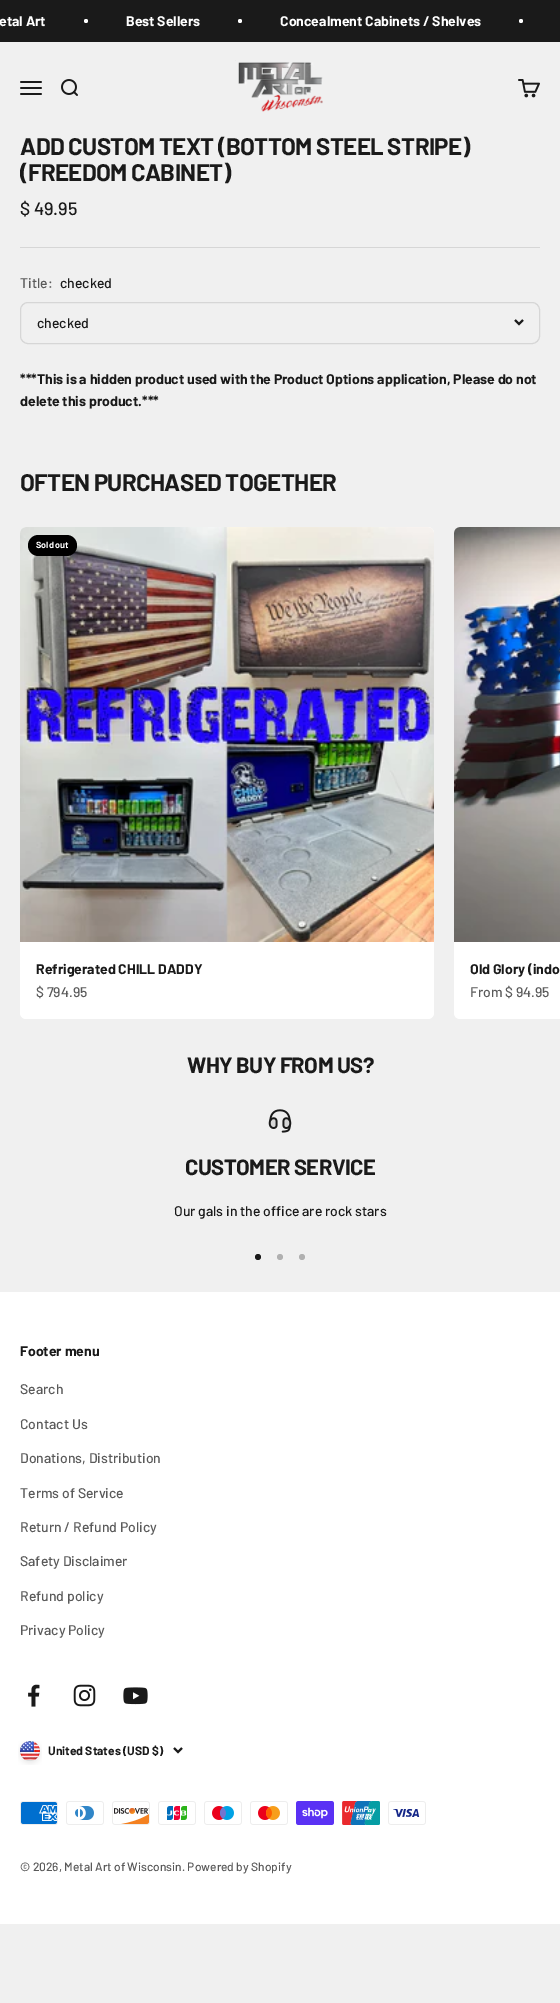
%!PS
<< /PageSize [560 2003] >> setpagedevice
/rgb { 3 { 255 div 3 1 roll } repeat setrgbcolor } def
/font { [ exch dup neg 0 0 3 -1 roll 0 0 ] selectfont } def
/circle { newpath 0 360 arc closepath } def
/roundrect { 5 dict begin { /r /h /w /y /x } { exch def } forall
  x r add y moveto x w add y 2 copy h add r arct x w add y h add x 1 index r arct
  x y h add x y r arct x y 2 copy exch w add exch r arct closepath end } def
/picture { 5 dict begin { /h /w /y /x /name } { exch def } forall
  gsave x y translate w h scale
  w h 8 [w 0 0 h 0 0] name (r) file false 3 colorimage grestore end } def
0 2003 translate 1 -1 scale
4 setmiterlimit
240 240 240 rgb
0 0 560 2003 rectfill
26 26 26 rgb
0 0 560 42 rectfill
255 255 255 rgb
86 21 2 circle fill
240 21 2 circle fill
521 21 2 circle fill
(img/1.rgb) 20 81 22 14 picture
(img/2.rgb) 61 79 17 17 picture
(img/3.rgb) 235 60 88 52 picture
(img/4.rgb) 518 79 22 19 picture
214 214 214 rgb
20 247 520 1 rectfill
20.5 302.5 519 41 7.5 roundrect stroke
26 26 26 rgb
2 setlinewidth
515 320 moveto 519 324 lineto 523 320 lineto stroke
255 255 255 rgb
20 527 414 492 6 roundrect fill
(img/5.rgb) 20 527 414 415 picture
0 0 0 rgb
28 535 49 21 10.5 roundrect fill
255 255 255 rgb
460 527 moveto 560 527 lineto 560 1019 lineto 460 1019 lineto 456.5 1019 454 1016.5 454 1013 curveto 454 533 lineto 454 529.5 456.5 527 460 527 curveto closepath fill
(img/6.rgb) 454 527 106 415 picture
(img/7.rgb) 268 1109 24 24 picture
26 26 26 rgb
258 1257 3 circle fill
176 176 176 rgb
280 1257 3 circle fill
302 1257 3 circle fill
255 255 255 rgb
0 1292 560 632 rectfill
(img/8.rgb) 28 1684 12 23 picture
(img/9.rgb) 73 1684 23 23 picture
(img/10.rgb) 123 1687 25 18 picture
(img/11.rgb) 18 1741 24 24 picture
26 26 26 rgb
174 1748 moveto 178 1752 lineto 182 1748 lineto stroke
(img/12.rgb) 20 1801 38 24 picture
(img/13.rgb) 66 1801 38 24 picture
(img/14.rgb) 112 1801 38 24 picture
(img/15.rgb) 158 1801 38 24 picture
(img/16.rgb) 204 1801 38 24 picture
(img/17.rgb) 250 1801 38 24 picture
(img/18.rgb) 296 1801 38 24 picture
(img/19.rgb) 342 1801 38 24 picture
(img/20.rgb) 388 1801 38 24 picture
/Barlow-Bold 14 font
255 255 255 rgb
[
  [(etal Art) -1 26]
  [(Best Sellers) 126 26]
  [(Concealment Cabinets / Shelves) 280 26]
] { aload pop moveto show } forall
/Barlow-Bold 24 font
26 26 26 rgb
20 155 moveto -0.6 0 (ADD CUSTOM TEXT \(BOTTOM STEEL STRIPE\)) ashow
20 181 moveto -0.6 0 (\(FREEDOM CABINET\)) ashow
/Barlow-Medium 18 font
20 215 moveto ($ 49.95) show
/Barlow-Medium 14 font
90 90 90 rgb
20 288 moveto (Title:) show
26 26 26 rgb
60 288 moveto (checked) show
37 328 moveto (checked) show
/Barlow-Bold 14 font
20 384 moveto (***This is a hidden product used with the Product Options application, Please do not) show
20 406 moveto (delete this product.***) show
/Barlow-Bold 24 font
20 491 moveto -0.6 0 (OFTEN PURCHASED TOGETHER) ashow
/Barlow-Bold 9 font
255 255 255 rgb
36 548 moveto (Sold out) show
/Barlow-Bold 14 font
26 26 26 rgb
36 974 moveto (Refrigerated CHILL DADDY) show
/Barlow-Medium 14 font
90 90 90 rgb
36 997 moveto ($ 794.95) show
/Barlow-Bold 14 font
26 26 26 rgb
470 974 moveto (Old Glory \(indo) show
/Barlow-Medium 14 font
90 90 90 rgb
470 997 moveto (From $ 94.95) show
/Barlow-Bold 22 font
26 26 26 rgb
187 1073 moveto -0.5 0 (WHY BUY FROM US?) ashow
185 1175 moveto -0.5 0 (CUSTOMER SERVICE) ashow
/Barlow-Medium 14 font
174 1216 moveto (Our gals in the office are rock stars) show
/Barlow-Bold 14 font
20 1356 moveto (Footer menu) show
/Barlow-Medium 14 font
90 90 90 rgb
[
  [(Search) 20 1394]
  [(Contact Us) 20 1429]
  [(Donations, Distribution) 20 1463]
  [(Terms of Service) 20 1498]
  [(Return / Refund Policy) 20 1532]
  [(Safety Disclaimer) 20 1566]
  [(Refund policy) 20 1601]
  [(Privacy Policy) 20 1635]
] { aload pop moveto show } forall
/Barlow-Bold 12 font
26 26 26 rgb
48 1755 moveto (United States \(USD $\)) show
/Barlow-Medium 12 font
90 90 90 rgb
20 1871 moveto (© 2026, Metal Art of Wisconsin. Powered by Shopify) show
showpage
